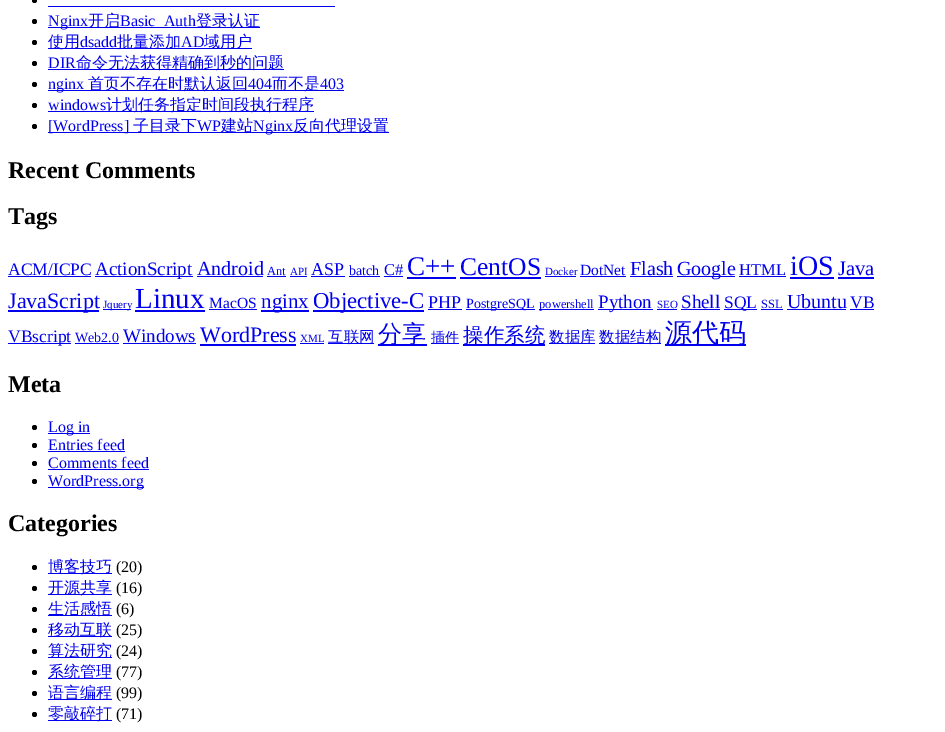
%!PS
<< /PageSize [945 732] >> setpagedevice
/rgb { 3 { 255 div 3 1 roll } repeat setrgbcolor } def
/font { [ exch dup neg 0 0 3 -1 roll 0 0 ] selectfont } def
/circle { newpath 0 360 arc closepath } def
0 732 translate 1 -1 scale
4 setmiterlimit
255 255 255 rgb
0 0 945 732 rectfill
0 0 0 rgb
34.5 0.5 2.5 circle fill
0 0 238 rgb
48 6 287 1 rectfill
0 0 0 rgb
34.5 21.5 2.5 circle fill
0 0 238 rgb
48 27 212 1 rectfill
0 0 0 rgb
34.5 42.5 2.5 circle fill
0 0 238 rgb
48 48 204 1 rectfill
0 0 0 rgb
34.5 63.5 2.5 circle fill
0 0 238 rgb
48 69 236 1 rectfill
0 0 0 rgb
34.5 84.5 2.5 circle fill
0 0 238 rgb
48 90 296 1 rectfill
0 0 0 rgb
34.5 105.5 2.5 circle fill
0 0 238 rgb
48 111 266 1 rectfill
0 0 0 rgb
34.5 126.5 2.5 circle fill
[
  [48 132 341 1 0 0 238]
  [8 276 83 1 0 0 238]
  [95 276 98 1 0 0 238]
  [197 276 66 1 0 0 238]
  [267 276 19 1 0 0 238]
  [290 276 17 1 0 0 238]
  [311 276 34 1 0 0 238]
  [349 276 31 1 0 0 238]
  [384 276 19 1 0 0 238]
  [407 277 49 2 0 0 238]
  [460 277 81 2 0 0 238]
  [545 276 31 1 0 0 238]
  [580 276 46 1 0 0 238]
  [630 276 43 1 0 0 238]
  [677 276 58 1 0 0 238]
  [739 276 47 1 0 0 238]
  [790 277 44 2 0 0 238]
  [838 277 36 2 0 0 238]
  [8 310 91 2 0 0 238]
  [103 309 28 1 0 0 238]
  [135 310 70 2 0 0 238]
  [209 309 48 1 0 0 238]
  [261 310 48 2 0 0 238]
  [313 310 111 2 0 0 238]
  [428 309 34 1 0 0 238]
  [466 309 69 1 0 0 238]
  [539 309 55 1 0 0 238]
  [598 309 55 1 0 0 238]
  [657 309 20 1 0 0 238]
  [681 309 39 1 0 0 238]
  [724 309 33 1 0 0 238]
  [761 309 22 1 0 0 238]
  [787 309 59 1 0 0 238]
  [850 309 24 1 0 0 238]
  [8 343 63 1 0 0 238]
  [75 343 44 1 0 0 238]
  [123 343 73 1 0 0 238]
  [200 344 96 2 0 0 238]
  [300 343 24 1 0 0 238]
  [328 343 46 1 0 0 238]
  [378 344 49 2 0 0 238]
  [431 343 28 1 0 0 238]
  [463 344 82 2 0 0 238]
  [549 343 46 1 0 0 238]
  [599 343 62 1 0 0 238]
  [665 344 81 2 0 0 238]
] { aload pop rgb rectfill } forall
0 0 0 rgb
34.5 427.5 2.5 circle fill
0 0 238 rgb
48 433 42 1 rectfill
0 0 0 rgb
34.5 445.5 2.5 circle fill
0 0 238 rgb
48 451 77 1 rectfill
0 0 0 rgb
34.5 463.5 2.5 circle fill
0 0 238 rgb
48 469 101 1 rectfill
0 0 0 rgb
34.5 481.5 2.5 circle fill
0 0 238 rgb
48 487 96 1 rectfill
0 0 0 rgb
34.5 567.5 2.5 circle fill
0 0 238 rgb
48 573 64 1 rectfill
0 0 0 rgb
34.5 588.5 2.5 circle fill
0 0 238 rgb
48 594 64 1 rectfill
0 0 0 rgb
34.5 609.5 2.5 circle fill
0 0 238 rgb
48 615 64 1 rectfill
0 0 0 rgb
34.5 630.5 2.5 circle fill
0 0 238 rgb
48 636 64 1 rectfill
0 0 0 rgb
34.5 651.5 2.5 circle fill
0 0 238 rgb
48 657 64 1 rectfill
0 0 0 rgb
34.5 672.5 2.5 circle fill
0 0 238 rgb
48 678 64 1 rectfill
0 0 0 rgb
34.5 693.5 2.5 circle fill
0 0 238 rgb
48 699 64 1 rectfill
0 0 0 rgb
34.5 714.5 2.5 circle fill
0 0 238 rgb
48 720 64 1 rectfill
/LiberationSerif-Regular 16 font
48 26 moveto (Nginx) show
/WenQuanYiZenHei-Medium 16 font
88 26 moveto (开启) show
/LiberationSerif-Regular 16 font
120 26 moveto (Basic_Auth) show
/WenQuanYiZenHei-Medium 16 font
196 26 moveto (登录认证) show
48 47 moveto (使用) show
/LiberationSerif-Regular 16 font
80 47 moveto (dsadd) show
/WenQuanYiZenHei-Medium 16 font
117 47 moveto (批量添加) show
/LiberationSerif-Regular 16 font
181 47 moveto (AD) show
/WenQuanYiZenHei-Medium 16 font
204 47 moveto (域用户) show
/LiberationSerif-Regular 16 font
48 68 moveto (DIR) show
/WenQuanYiZenHei-Medium 16 font
76 68 moveto (命令无法获得精确到秒的问题) show
/LiberationSerif-Regular 16 font
48 89 moveto (nginx) show
/WenQuanYiZenHei-Medium 16 font
88 89 moveto (首页不存在时默认返回) show
/LiberationSerif-Regular 16 font
248 89 moveto (404) show
/WenQuanYiZenHei-Medium 16 font
272 89 moveto (而不是) show
/LiberationSerif-Regular 16 font
320 89 moveto (403) show
48 110 moveto (windows) show
/WenQuanYiZenHei-Medium 16 font
106 110 moveto (计划任务指定时间段执行程序) show
/LiberationSerif-Regular 16 font
48 131 moveto ([WordPress]) show
/WenQuanYiZenHei-Medium 16 font
133 131 moveto (子目录下) show
/LiberationSerif-Regular 16 font
197 131 moveto (WP) show
/WenQuanYiZenHei-Medium 16 font
221 131 moveto (建站) show
/LiberationSerif-Regular 16 font
253 131 moveto (Nginx) show
/WenQuanYiZenHei-Medium 16 font
293 131 moveto (反向代理设置) show
/LiberationSerif-Bold 24 font
0 0 0 rgb
8 178 moveto (Recent Comments) show
8 224 moveto (Tags) show
/LiberationSerif-Regular 17.5 font
0 0 238 rgb
8 275 moveto (ACM/ICPC) show
/LiberationSerif-Regular 19 font
95 275 moveto (ActionScript) show
/LiberationSerif-Regular 20 font
197 275 moveto (Android) show
/LiberationSerif-Regular 12.5 font
267 275 moveto (Ant) show
/LiberationSerif-Regular 11 font
290 275 moveto (API) show
/LiberationSerif-Regular 18 font
311 275 moveto (ASP) show
/LiberationSerif-Regular 14 font
349 275 moveto (batch) show
/LiberationSerif-Regular 16.5 font
384 275 moveto (C#) show
/LiberationSerif-Regular 27 font
407 275 moveto (C++) show
/LiberationSerif-Regular 25.5 font
460 275 moveto (CentOS) show
/LiberationSerif-Regular 11 font
545 275 moveto (Docker) show
/LiberationSerif-Regular 15.5 font
580 275 moveto (DotNet) show
/LiberationSerif-Regular 20 font
630 275 moveto (Flash) show
677 275 moveto (Google) show
/LiberationSerif-Regular 16.5 font
739 275 moveto (HTML) show
/LiberationSerif-Regular 28 font
790 275 moveto (iOS) show
/LiberationSerif-Regular 20.5 font
838 275 moveto (Java) show
/LiberationSerif-Regular 22 font
8 308 moveto (JavaScript) show
/LiberationSerif-Regular 11 font
103 308 moveto (Jquery) show
/LiberationSerif-Regular 29 font
135 308 moveto (Linux) show
/LiberationSerif-Regular 15.5 font
209 308 moveto (MacOS) show
/LiberationSerif-Regular 21 font
261 308 moveto (nginx) show
/LiberationSerif-Regular 22.75 font
313 308 moveto (Objective-C) show
/LiberationSerif-Regular 18 font
428 308 moveto (PHP) show
/LiberationSerif-Regular 14 font
466 308 moveto (PostgreSQL) show
/LiberationSerif-Regular 12.5 font
539 308 moveto (powershell) show
/LiberationSerif-Regular 19 font
598 308 moveto (Python) show
/LiberationSerif-Regular 11 font
657 308 moveto (SEO) show
/LiberationSerif-Regular 19 font
681 308 moveto (Shell) show
/LiberationSerif-Regular 17.5 font
724 308 moveto (SQL) show
/LiberationSerif-Regular 12.5 font
761 308 moveto (SSL) show
/LiberationSerif-Regular 20 font
787 308 moveto (Ubuntu) show
/LiberationSerif-Regular 17.5 font
850 308 moveto (VB) show
8 342 moveto (VBscript) show
/LiberationSerif-Regular 14 font
75 342 moveto (Web2.0) show
/LiberationSerif-Regular 19 font
123 342 moveto (Windows) show
/LiberationSerif-Regular 22 font
200 342 moveto (WordPress) show
/LiberationSerif-Regular 11 font
300 342 moveto (XML) show
/WenQuanYiZenHei-Medium 15.5 font
328 342 moveto (互联网) show
/WenQuanYiZenHei-Medium 24 font
378 342 moveto (分享) show
/WenQuanYiZenHei-Medium 14 font
431 342 moveto (插件) show
/WenQuanYiZenHei-Medium 20.5 font
463 342 moveto (操作系统) show
/WenQuanYiZenHei-Medium 15.5 font
549 342 moveto (数据库) show
599 342 moveto (数据结构) show
/WenQuanYiZenHei-Medium 27 font
665 342 moveto (源代码) show
/LiberationSerif-Bold 24 font
0 0 0 rgb
8 392 moveto (Meta) show
/LiberationSerif-Regular 16 font
0 0 238 rgb
[
  [(Log in) 48 432]
  [(Entries feed) 48 450]
  [(Comments feed) 48 468]
  [(WordPress.org) 48 486]
] { aload pop moveto show } forall
/LiberationSerif-Bold 24 font
0 0 0 rgb
8 531 moveto (Categories) show
/WenQuanYiZenHei-Medium 16 font
0 0 238 rgb
48 572 moveto (博客技巧) show
/LiberationSerif-Regular 16 font
0 0 0 rgb
116 572 moveto (\(20\)) show
/WenQuanYiZenHei-Medium 16 font
0 0 238 rgb
48 593 moveto (开源共享) show
/LiberationSerif-Regular 16 font
0 0 0 rgb
116 593 moveto (\(16\)) show
/WenQuanYiZenHei-Medium 16 font
0 0 238 rgb
48 614 moveto (生活感悟) show
/LiberationSerif-Regular 16 font
0 0 0 rgb
116 614 moveto (\(6\)) show
/WenQuanYiZenHei-Medium 16 font
0 0 238 rgb
48 635 moveto (移动互联) show
/LiberationSerif-Regular 16 font
0 0 0 rgb
116 635 moveto (\(25\)) show
/WenQuanYiZenHei-Medium 16 font
0 0 238 rgb
48 656 moveto (算法研究) show
/LiberationSerif-Regular 16 font
0 0 0 rgb
116 656 moveto (\(24\)) show
/WenQuanYiZenHei-Medium 16 font
0 0 238 rgb
48 677 moveto (系统管理) show
/LiberationSerif-Regular 16 font
0 0 0 rgb
116 677 moveto (\(77\)) show
/WenQuanYiZenHei-Medium 16 font
0 0 238 rgb
48 698 moveto (语言编程) show
/LiberationSerif-Regular 16 font
0 0 0 rgb
116 698 moveto (\(99\)) show
/WenQuanYiZenHei-Medium 16 font
0 0 238 rgb
48 719 moveto (零敲碎打) show
/LiberationSerif-Regular 16 font
0 0 0 rgb
116 719 moveto (\(71\)) show
showpage
